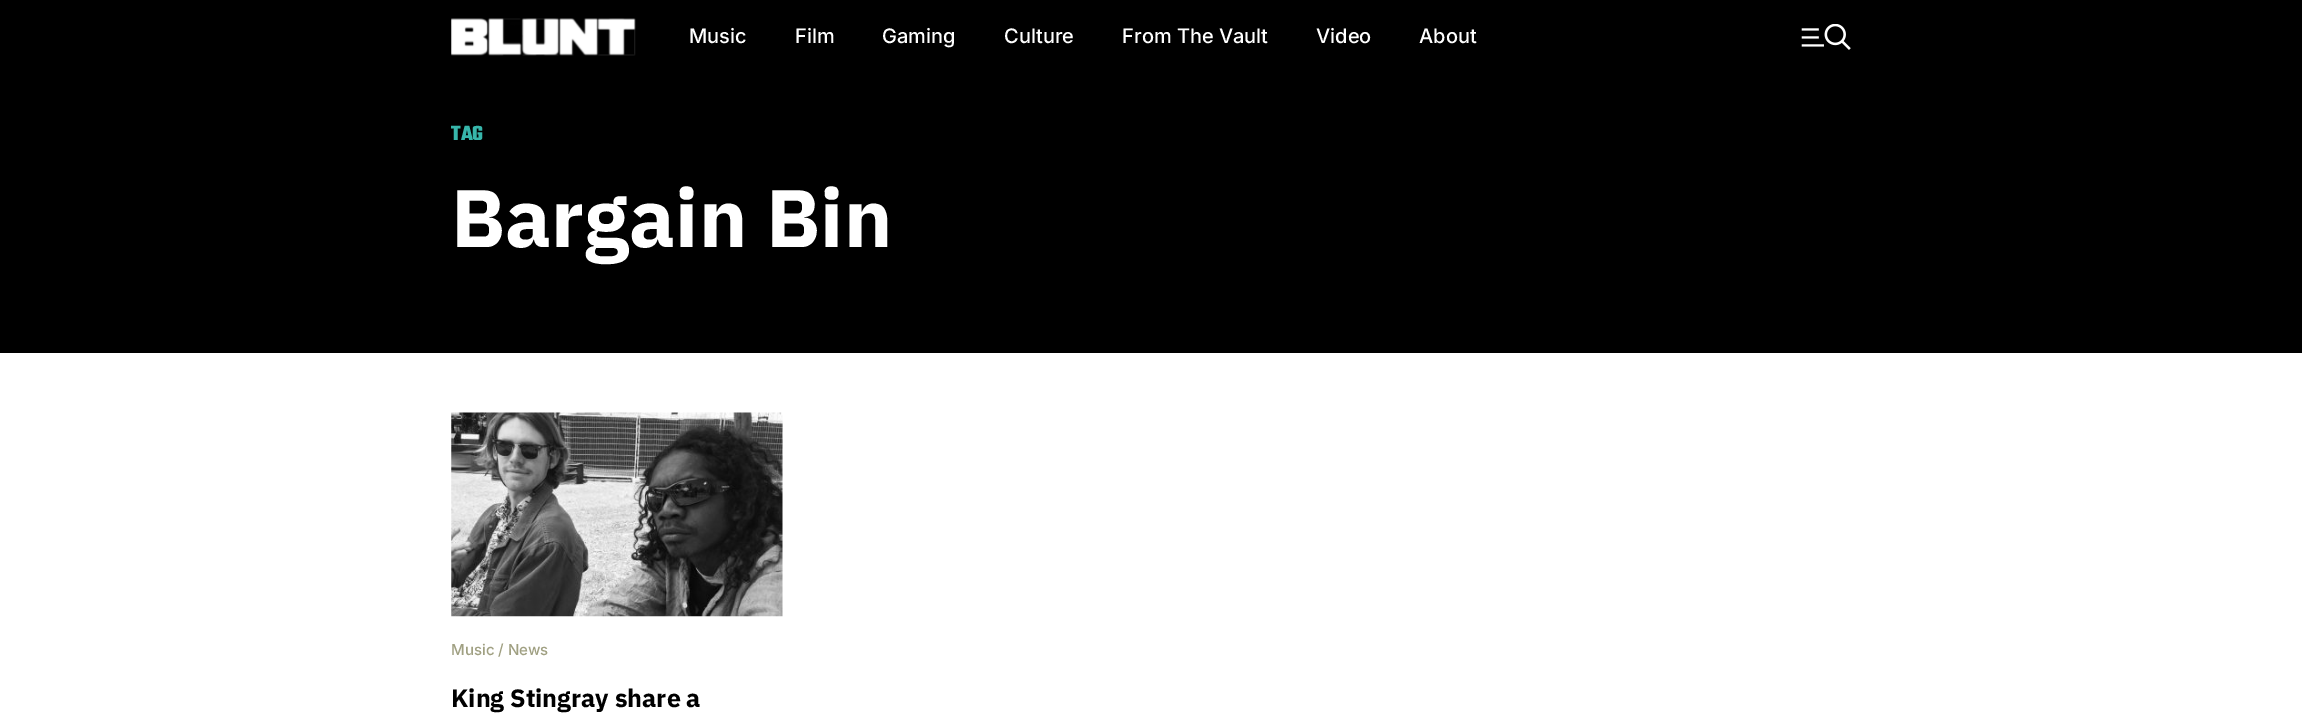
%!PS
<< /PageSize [2302 725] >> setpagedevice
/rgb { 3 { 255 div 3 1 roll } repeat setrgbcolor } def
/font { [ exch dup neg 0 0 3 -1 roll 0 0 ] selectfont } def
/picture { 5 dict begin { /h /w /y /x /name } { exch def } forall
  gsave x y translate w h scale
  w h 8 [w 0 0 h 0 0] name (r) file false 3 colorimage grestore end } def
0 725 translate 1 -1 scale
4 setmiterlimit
255 255 255 rgb
0 0 2302 725 rectfill
0 0 0 rgb
0 0 2302 353 rectfill
(img/1.rgb) 451 18 185 38 picture
(img/2.rgb) 1801 24 50 26 picture
(img/3.rgb) 451 412 332 205 picture
/Inter-Medium 20 font
255 255 255 rgb
[
  [(Music) 689 43]
  [(Film) 795 43]
  [(Gaming) 882 43]
  [(Culture) 1004 43]
  [(From The Vault) 1122 43]
  [(Video) 1316 43]
  [(About) 1419 43]
] { aload pop moveto show } forall
/Teko-Light 22 font
55 182 171 rgb
451 140 moveto (TAG) show
/IBMPlexSans-Bold 81.25 font
255 255 255 rgb
451 247 moveto (Bargain Bin) show
/Inter-Medium 15 font
160 160 130 rgb
451 655 moveto (Music / News) show
/IBMPlexSans-Bold 25 font
0 0 0 rgb
451 707 moveto (King Stingray share a) show
showpage
